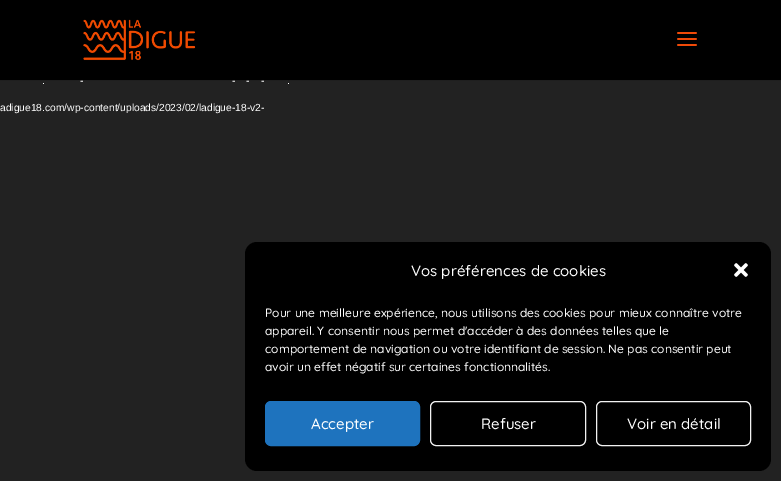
%!PS
<< /PageSize [781 481] /PageUsesTransparency true >> setpagedevice
/rgb { 3 { 255 div 3 1 roll } repeat setrgbcolor } def
/font { [ exch dup neg 0 0 3 -1 roll 0 0 ] selectfont } def
/alpha { dup .setfillconstantalpha .setstrokeconstantalpha } def
/roundrect { 5 dict begin { /r /h /w /y /x } { exch def } forall
  x r add y moveto x w add y 2 copy h add r arct x w add y h add x 1 index r arct
  x y h add x y r arct x y 2 copy exch w add exch r arct closepath end } def
/picture { 5 dict begin { /h /w /y /x /name } { exch def } forall
  gsave x y translate w h scale
  w h 8 [w 0 0 h 0 0] name (r) file false 3 colorimage grestore end } def
0 .pushpdf14devicefilter
0 481 translate 1 -1 scale
4 setmiterlimit
34 34 34 rgb
0 0 781 481 rectfill
0.1 alpha
0 0 0 rgb
0 80 781 1 rectfill
1 alpha
0 0 781 80 rectfill
(img/1.rgb) 83 19 113 42 picture
(img/2.rgb) 677 32 20 14 picture
245 242 526 229 12 roundrect fill
(img/3.rgb) 734 263 14 14 picture
30 115 190 rgb
265.5 401.5 154 44 5.5 roundrect gsave fill grestore
stroke
242 242 242 rgb
430.5 401.5 155 44 5.5 roundrect stroke
596.5 401.5 154 44 5.5 roundrect stroke
/LiberationSans-Regular 10.25 font
255 255 255 rgb
[
  [(-) 80 84]
  [(-) 232 84]
  [(-) 246 84]
  [(-) 261 84]
  [(.) 42 84]
  [(.) 287 84]
  [(adigue18.com/wp-content/uploads/2023/02/ladigue-18-v2-) 0 111]
] { aload pop moveto show } forall
/Quicksand-Medium 15 font
411 276 moveto (Vos préférences de cookies) show
/Quicksand-Medium 12 font
[
  [(Pour une meilleure expérience, nous utilisons des cookies pour mieux connaître votre) 265 317]
  [(appareil. Y consentir nous permet d'accéder à des données telles que le) 265 335]
  [(comportement de navigation ou votre identifiant de session. Ne pas consentir peut) 265 353]
  [(avoir un effet négatif sur certaines fonctionnalités.) 265 371]
] { aload pop moveto show } forall
/Quicksand-Medium 15 font
[
  [(Accepter) 311 429]
  [(Refuser) 481 429]
  [(Voir en détail) 627 429]
] { aload pop moveto show } forall
.poppdf14devicefilter showpage
